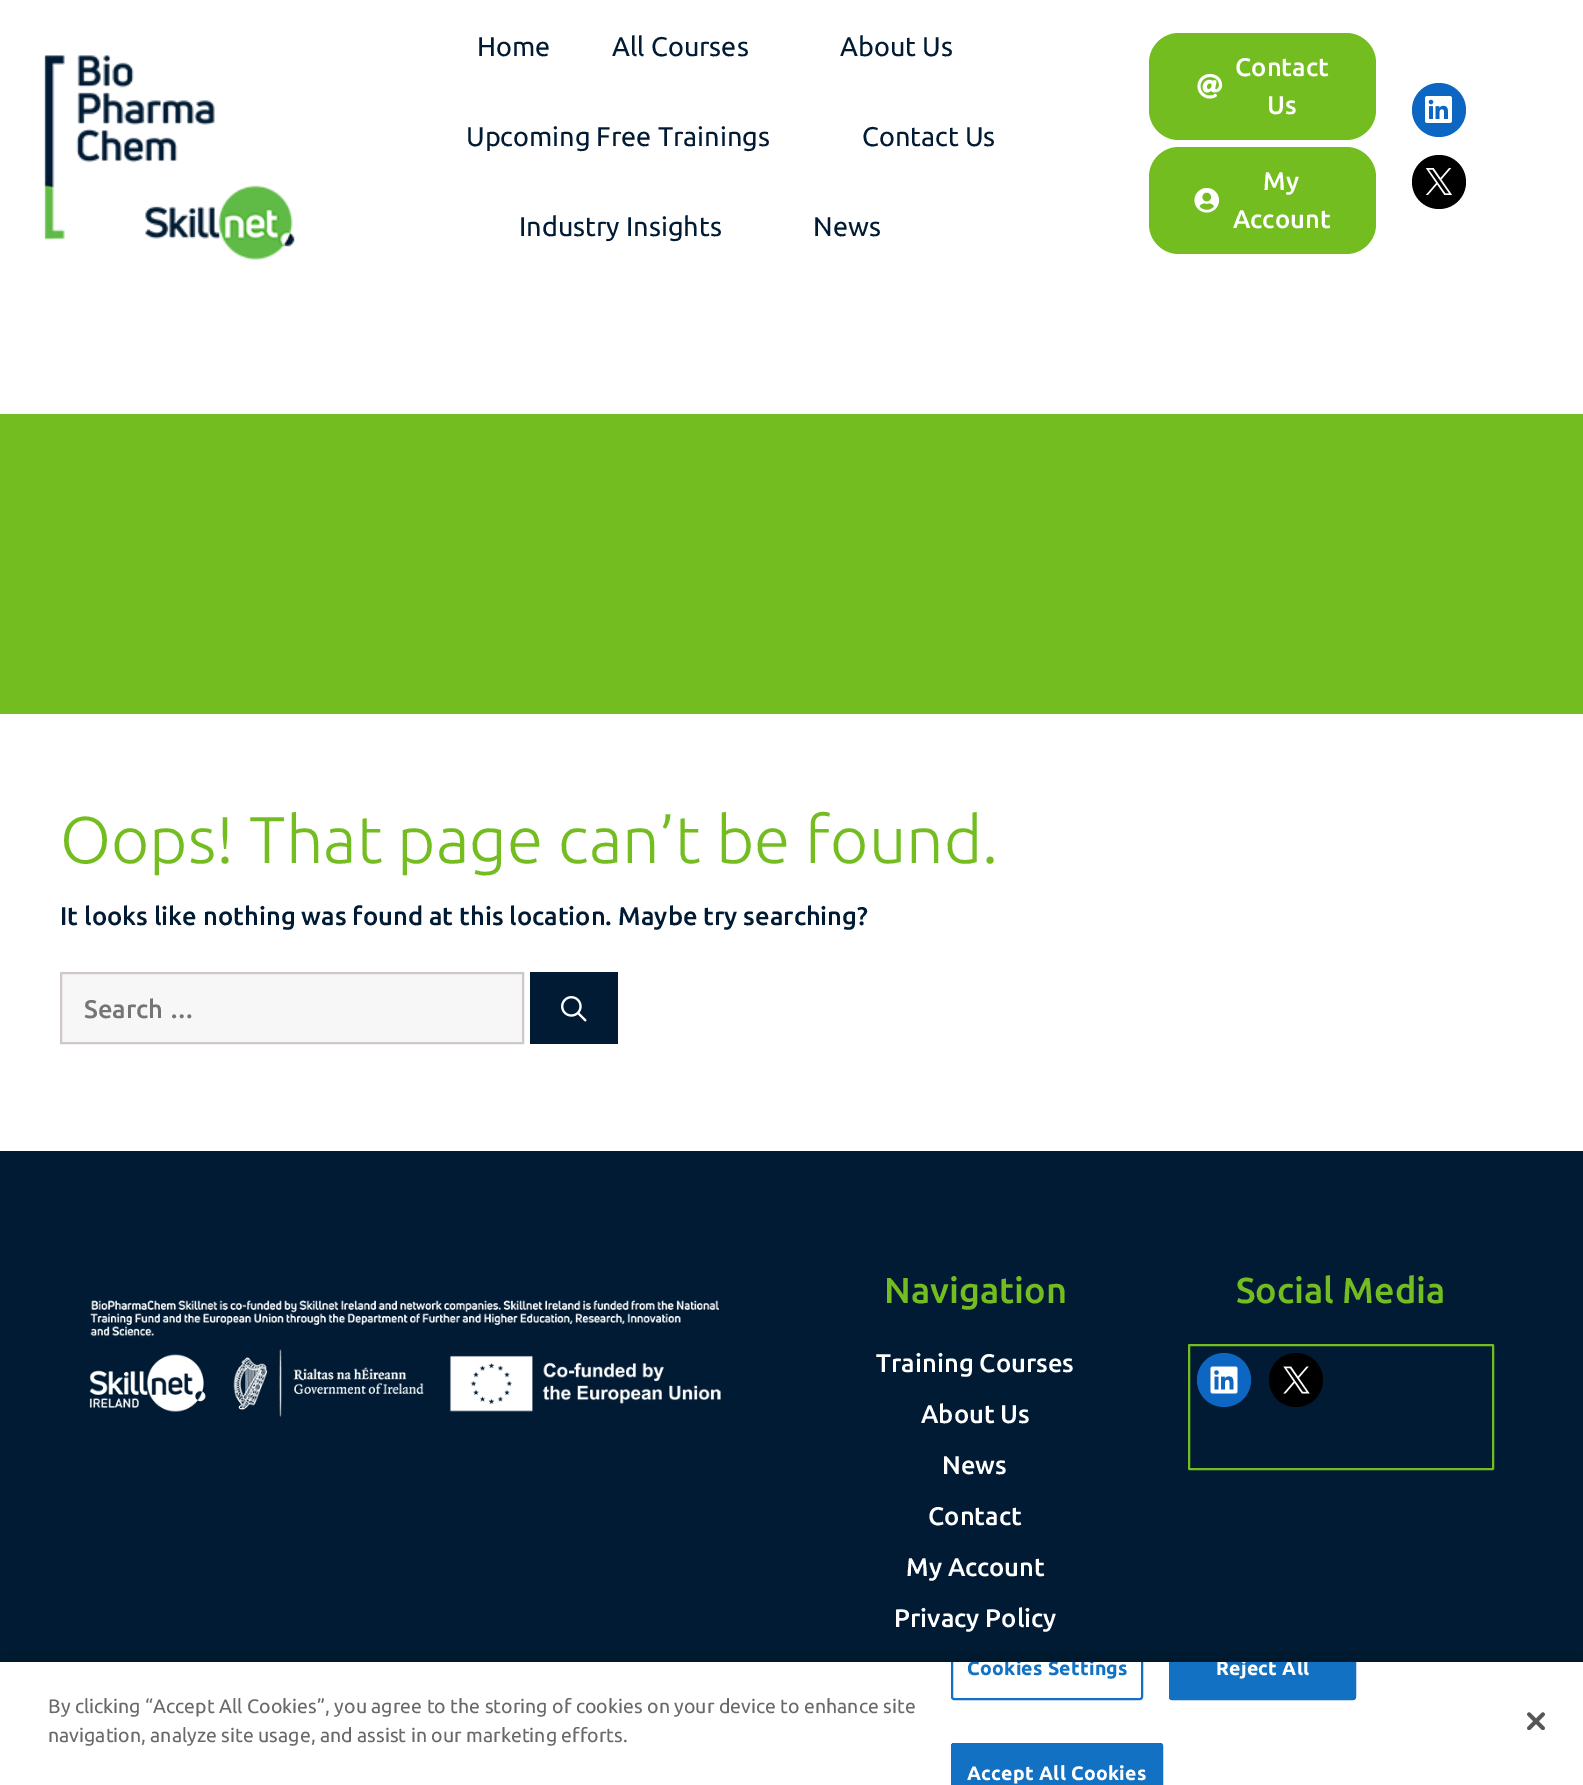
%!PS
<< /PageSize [1583 1785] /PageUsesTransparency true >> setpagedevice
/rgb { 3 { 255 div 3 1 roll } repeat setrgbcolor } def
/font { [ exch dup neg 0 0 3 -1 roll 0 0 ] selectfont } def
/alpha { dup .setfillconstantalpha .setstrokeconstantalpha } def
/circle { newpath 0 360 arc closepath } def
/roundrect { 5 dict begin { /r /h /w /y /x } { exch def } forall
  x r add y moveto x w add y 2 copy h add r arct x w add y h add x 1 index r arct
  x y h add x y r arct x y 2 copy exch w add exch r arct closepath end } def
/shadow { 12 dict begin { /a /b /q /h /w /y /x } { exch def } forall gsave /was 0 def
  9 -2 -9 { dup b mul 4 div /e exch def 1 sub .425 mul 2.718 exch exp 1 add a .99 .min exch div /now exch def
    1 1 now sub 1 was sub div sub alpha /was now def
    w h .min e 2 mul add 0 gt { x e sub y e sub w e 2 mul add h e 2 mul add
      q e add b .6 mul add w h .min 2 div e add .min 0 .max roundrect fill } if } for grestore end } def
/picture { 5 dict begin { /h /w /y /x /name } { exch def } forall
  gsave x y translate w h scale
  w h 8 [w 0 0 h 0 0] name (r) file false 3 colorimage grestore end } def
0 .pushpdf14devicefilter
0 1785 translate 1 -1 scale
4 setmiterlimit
255 255 255 rgb
0 0 1583 1785 rectfill
(img/1.rgb) 44 55 251 205 picture
115 189 33 rgb
1149 33 227 107 30 roundrect fill
(img/2.rgb) 1197 74 26 25 picture
1149 147 227 107 30 roundrect fill
(img/3.rgb) 1194 188 26 25 picture
13 102 194 rgb
1439 110 27 circle fill
(img/4.rgb) 1425 96 27 27 picture
0 0 0 rgb
1439 182 27 circle fill
(img/5.rgb) 1425 168 28 27 picture
115 189 33 rgb
0 414 1583 300 rectfill
247 247 247 rgb
61 973 moveto 523 973 lineto 523 1043 lineto 61 1043 lineto closepath gsave fill grestore
206 200 200 rgb
2 setlinewidth
stroke
0 27 51 rgb
530 972 88 72 rectfill
(img/6.rgb) 561 996 26 26 picture
0 1151 1583 511 rectfill
(img/7.rgb) 89 1300 632 117 picture
115 189 33 rgb
1189 1345 304 124 0.5 roundrect stroke
13 102 194 rgb
1224 1380 27 circle fill
(img/8.rgb) 1210 1366 28 28 picture
0 0 0 rgb
1296 1380 27 circle fill
(img/9.rgb) 1283 1366 27 28 picture
0 1662 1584 123 0 13.5 0.2 shadow
255 255 255 rgb
0 1662 1583 123 rectfill
gsave
0 1662 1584 123 rectclip
19 113 195 rgb
952 1638 190 61 2 roundrect stroke
grestore
19 113 195 rgb
1169 1662 moveto 1356 1662 lineto 1356 1697 lineto 1356 1698.5 1354.5 1700 1353 1700 curveto 1172 1700 lineto 1170.5 1700 1169 1698.5 1169 1697 curveto closepath fill
gsave
0 1662 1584 123 rectclip
1170 1638 185 61 2 roundrect stroke
grestore
954 1743 moveto 1160 1743 lineto 1161.5 1743 1163 1744.5 1163 1746 curveto 1163 1785 lineto 951 1785 lineto 951 1746 lineto 951 1744.5 952.5 1743 954 1743 curveto closepath fill
952 1744 210 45 2 roundrect stroke
(img/10.rgb) 1527 1712 18 18 picture
/Ubuntu-Regular 27 font
0 27 51 rgb
[
  [(Home) 477 56]
  [(All Courses) 612 56]
  [(About Us) 840 56]
  [(Upcoming Free Trainings) 466 146]
  [(Contact Us) 862 146]
  [(Industry Insights) 519 236]
  [(News) 813 236]
] { aload pop moveto show } forall
/Ubuntu-Medium 25.5 font
255 255 255 rgb
[
  [(Contact) 1235 76]
  [(Us) 1267 114]
  [(My) 1263 190]
  [(Account) 1233 228]
] { aload pop moveto show } forall
/Ubuntu-Light 66 font
115 189 33 rgb
60 863 moveto (Oops! That page can’t be found.) show
/Ubuntu-Medium 25.5 font
0 27 51 rgb
60 925 moveto (It looks like nothing was found at this location. Maybe try searching?) show
117 117 117 rgb
84 1018 moveto (Search …) show
/Ubuntu-Medium 36 font
115 189 33 rgb
884 1303 moveto (Navigation) show
/Ubuntu-Medium 25.5 font
255 255 255 rgb
[
  [(Training Courses) 876 1372]
  [(About Us) 921 1423]
  [(News) 942 1474]
  [(Contact) 928 1525]
  [(My Account) 906 1576]
  [(Privacy Policy) 894 1627]
] { aload pop moveto show } forall
/Ubuntu-Medium 36 font
115 189 33 rgb
1236 1303 moveto (Social Media) show
/Ubuntu-Regular 19.5 font
105 105 105 rgb
48 1713 moveto (By clicking “Accept All Cookies”, you agree to the storing of cookies on your device to enhance site) show
48 1742 moveto (navigation, analyze site usage, and assist in our marketing efforts.) show
gsave
0 1662 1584 123 rectclip
/Ubuntu-Bold 19.5 font
19 113 195 rgb
967 1675 moveto 0.25 0 (Cookies Settings) ashow
255 255 255 rgb
1216 1675 moveto 0.25 0 (Reject All) ashow
grestore
/Ubuntu-Bold 19.5 font
255 255 255 rgb
967 1780 moveto 0.25 0 (Accept All Cookies) ashow
.poppdf14devicefilter showpage
